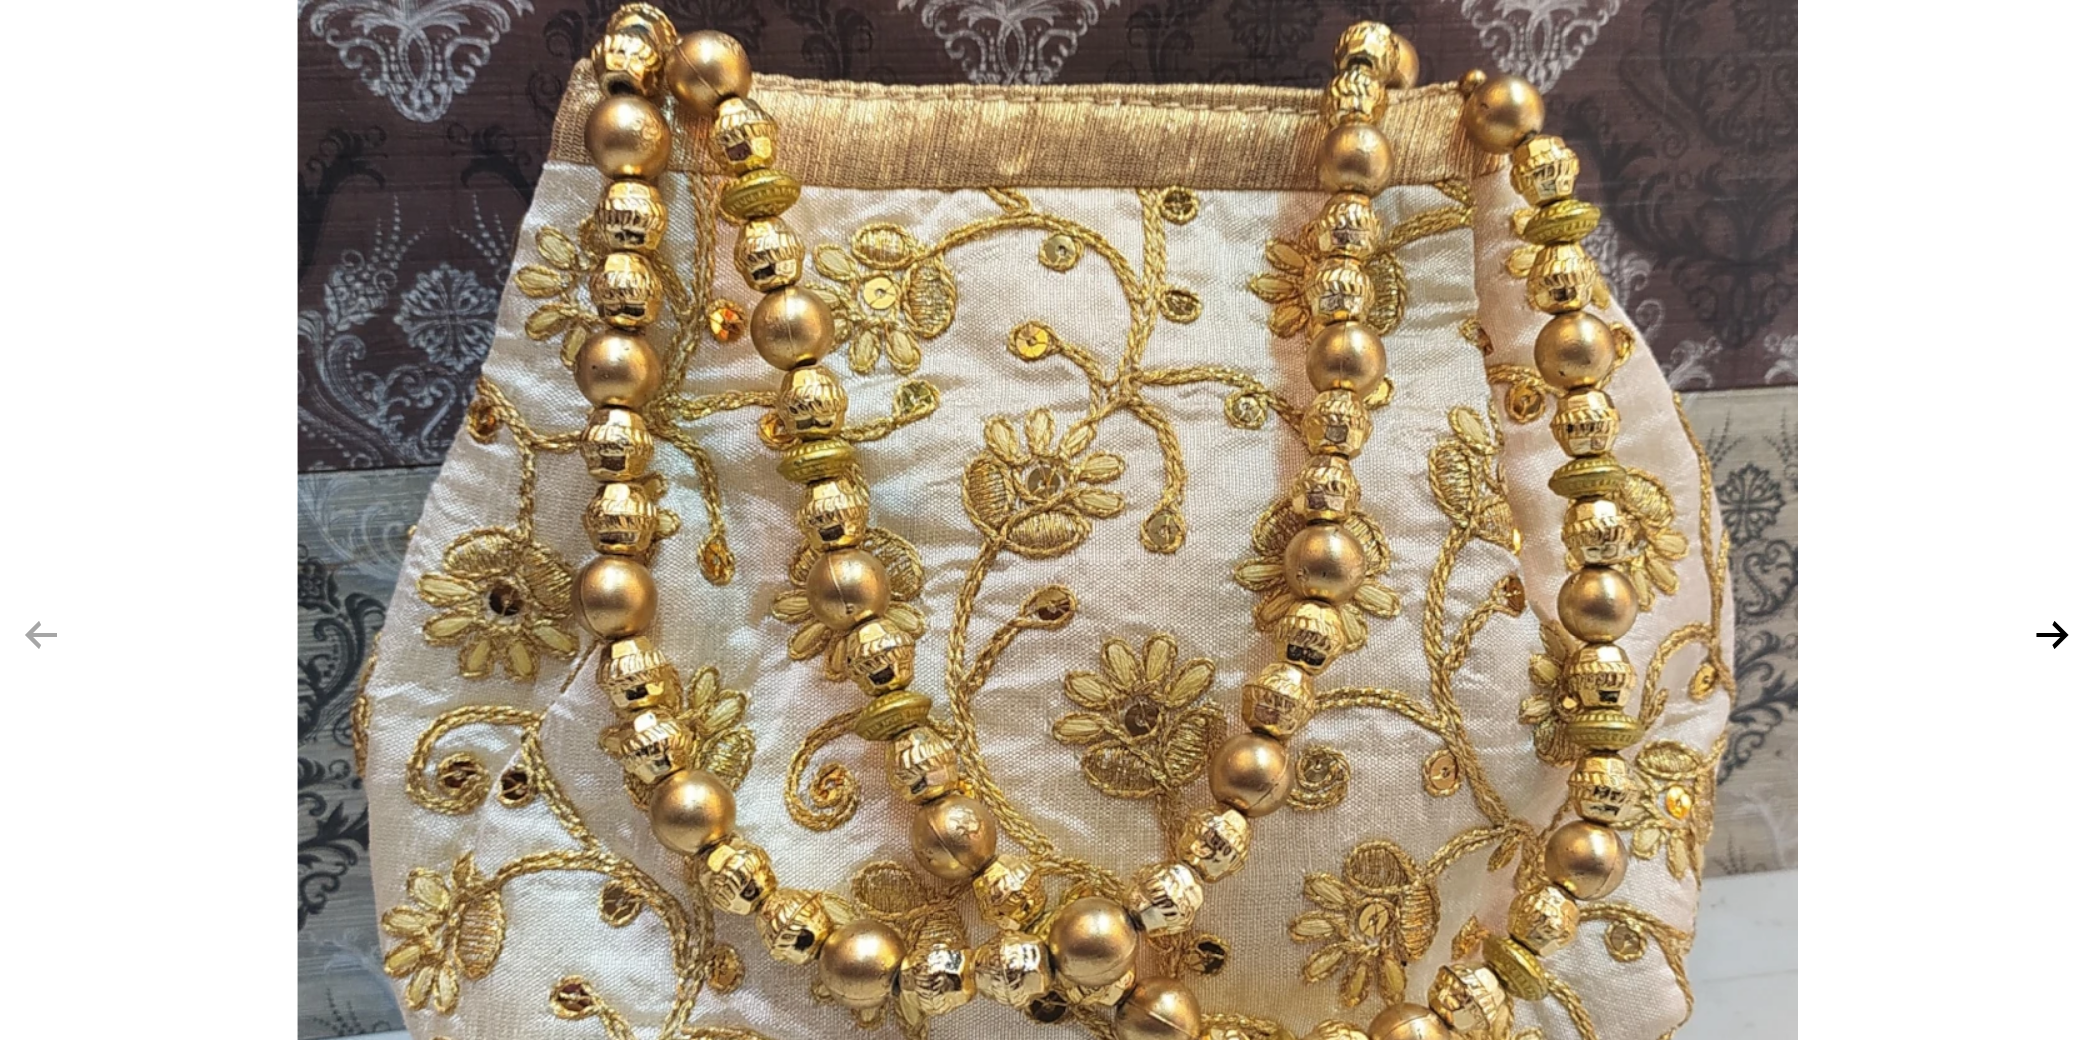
%!PS
<< /PageSize [2093 1040] >> setpagedevice
/rgb { 3 { 255 div 3 1 roll } repeat setrgbcolor } def
/picture { 5 dict begin { /h /w /y /x /name } { exch def } forall
  gsave x y translate w h scale
  w h 8 [w 0 0 h 0 0] name (r) file false 3 colorimage grestore end } def
0 1040 translate 1 -1 scale
4 setmiterlimit
255 255 255 rgb
0 0 2093 1040 rectfill
(img/1.rgb) 297 0 1501 1040 picture
166 166 166 rgb
57 633 moveto 57 637 lineto 33 637 lineto 41 645 lineto 39 649 lineto 25 635 lineto 39 621 lineto 41 625 lineto 33 633 lineto closepath fill
0 0 0 rgb
2036.5 637 moveto 2036.5 633 lineto 2060.5 633 lineto 2052.5 625 lineto 2054.5 621 lineto 2068.5 635 lineto 2054.5 649 lineto 2052.5 645 lineto 2060.5 637 lineto closepath fill
showpage
